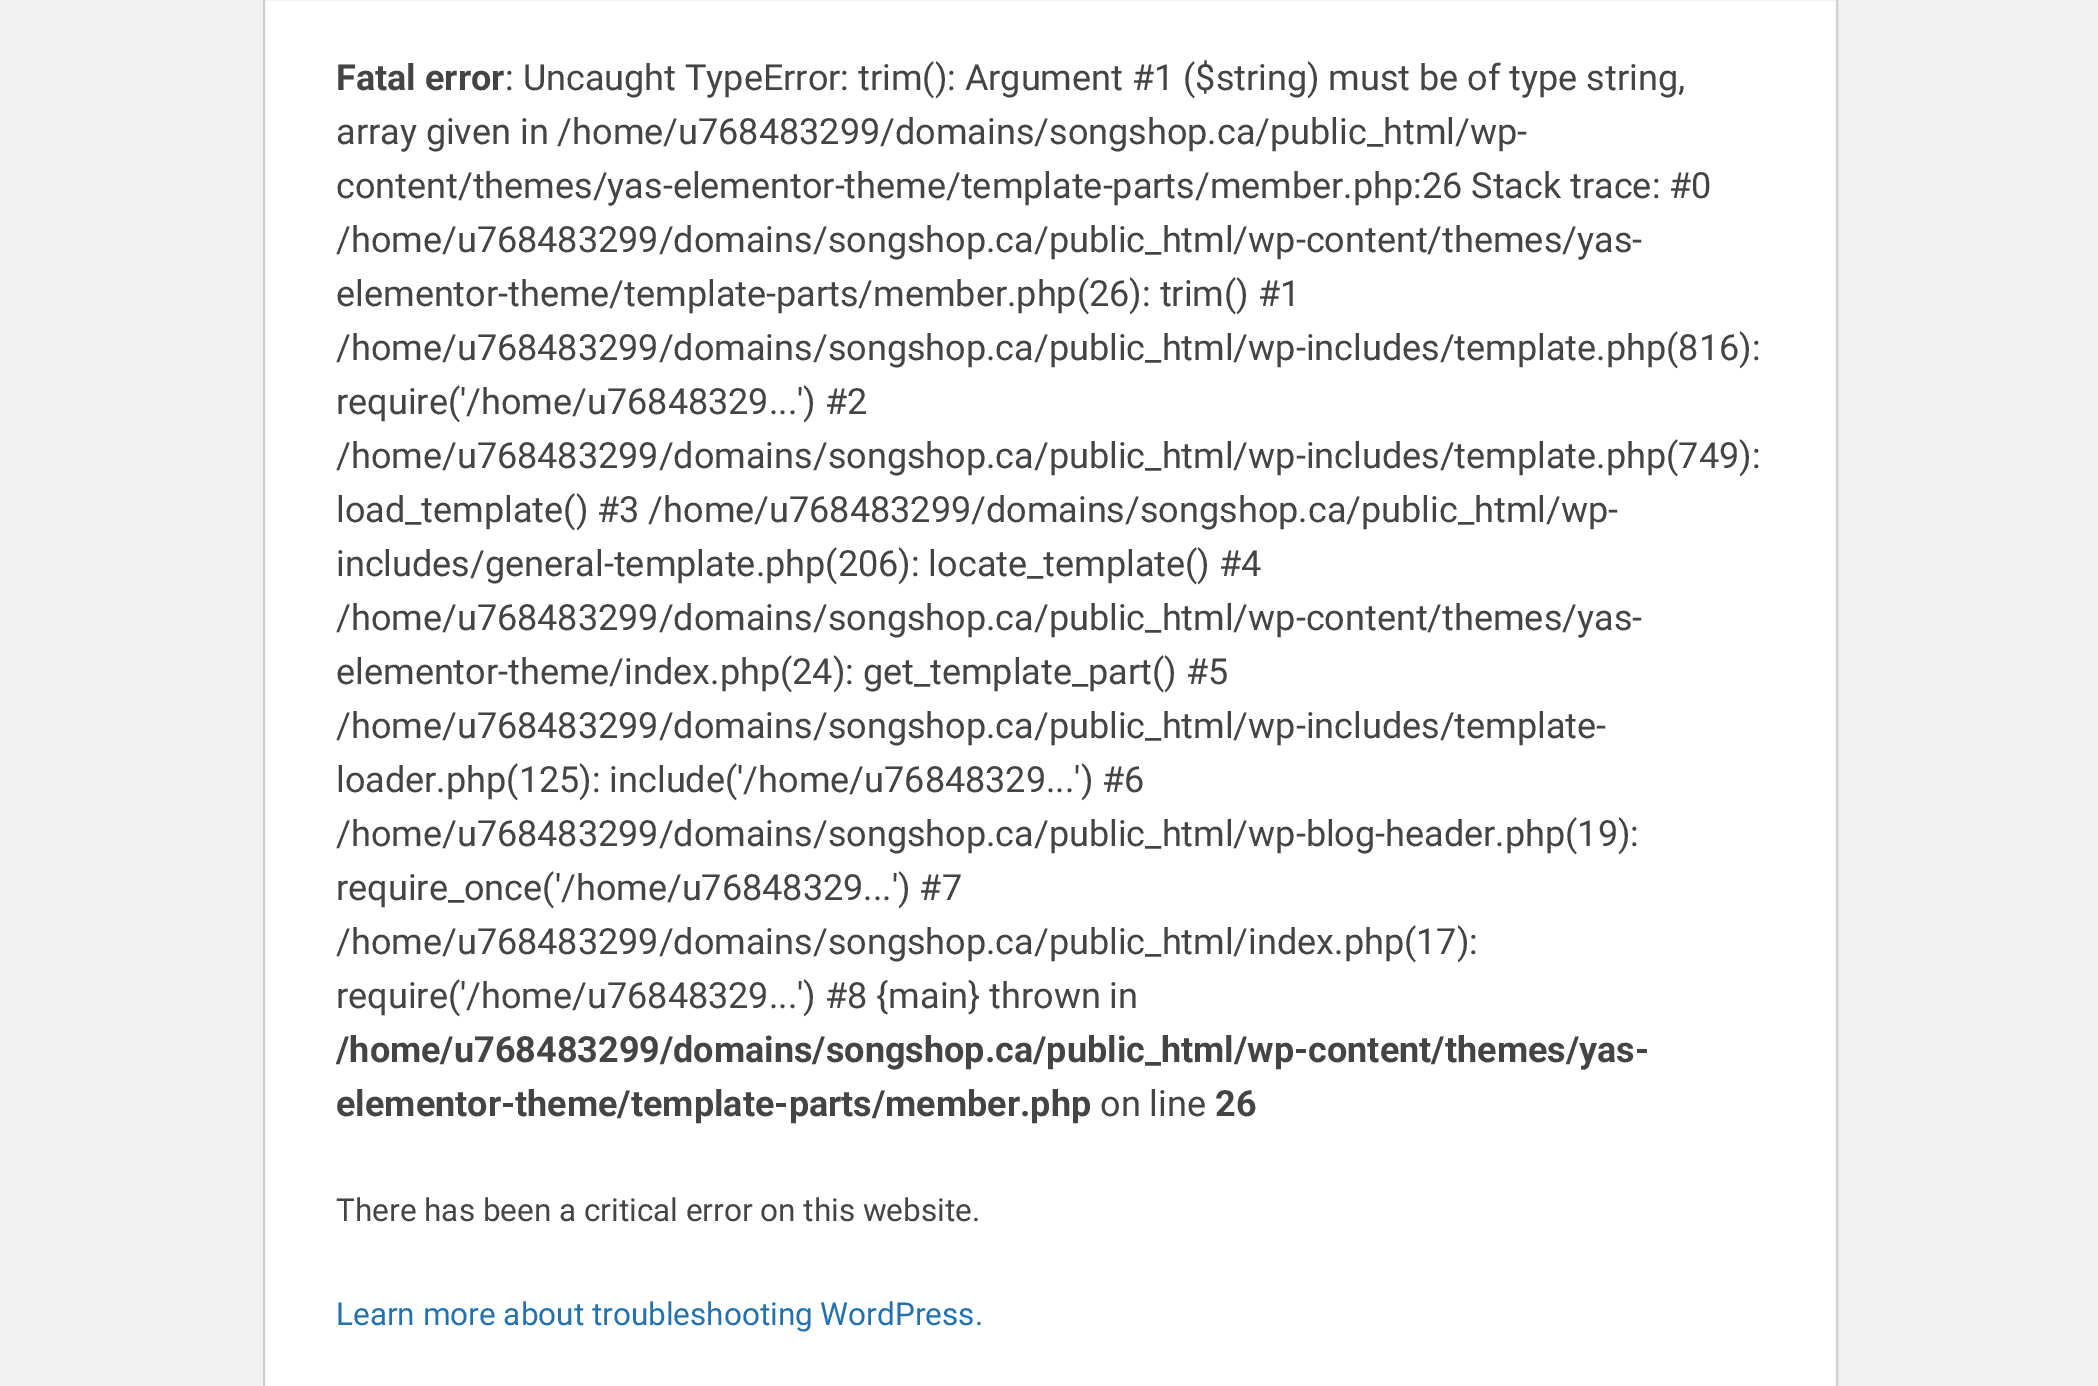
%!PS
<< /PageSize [2098 1386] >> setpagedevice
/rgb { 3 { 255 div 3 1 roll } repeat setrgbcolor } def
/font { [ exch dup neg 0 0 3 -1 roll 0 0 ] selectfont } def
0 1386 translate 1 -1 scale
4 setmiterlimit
241 241 241 rgb
0 0 2098 1386 rectfill
255 255 255 rgb
264 -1 moveto 1837 -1 lineto 1837 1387 lineto 264 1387 lineto closepath gsave fill grestore
204 208 212 rgb
2 setlinewidth
stroke
/Roboto-Bold 36 font
68 68 68 rgb
336 90 moveto (Fatal error) show
/Roboto-Regular 36 font
[
  [(: Uncaught TypeError: trim\(\): Argument #1 \($string\) must be of type string,) 505 90]
  [(array given in /home/u768483299/domains/songshop.ca/public_html/wp-) 336 144]
  [(content/themes/yas-elementor-theme/template-parts/member.php:26 Stack trace: #0) 336 198]
  [(/home/u768483299/domains/songshop.ca/public_html/wp-content/themes/yas-) 336 252]
  [(elementor-theme/template-parts/member.php\(26\): trim\(\) #1) 336 306]
  [(/home/u768483299/domains/songshop.ca/public_html/wp-includes/template.php\(816\):) 336 360]
  [(require\('/home/u76848329...'\) #2) 336 414]
  [(/home/u768483299/domains/songshop.ca/public_html/wp-includes/template.php\(749\):) 336 468]
  [(load_template\(\) #3 /home/u768483299/domains/songshop.ca/public_html/wp-) 336 522]
  [(includes/general-template.php\(206\): locate_template\(\) #4) 336 576]
  [(/home/u768483299/domains/songshop.ca/public_html/wp-content/themes/yas-) 336 630]
  [(elementor-theme/index.php\(24\): get_template_part\(\) #5) 336 684]
  [(/home/u768483299/domains/songshop.ca/public_html/wp-includes/template-) 336 738]
  [(loader.php\(125\): include\('/home/u76848329...'\) #6) 336 792]
  [(/home/u768483299/domains/songshop.ca/public_html/wp-blog-header.php\(19\):) 336 846]
  [(require_once\('/home/u76848329...'\) #7) 336 900]
  [(/home/u768483299/domains/songshop.ca/public_html/index.php\(17\):) 336 954]
  [(require\('/home/u76848329...'\) #8 {main} thrown in) 336 1008]
] { aload pop moveto show } forall
/Roboto-Bold 36 font
336 1062 moveto (/home/u768483299/domains/songshop.ca/public_html/wp-content/themes/yas-) show
336 1116 moveto (elementor-theme/template-parts/member.php) show
/Roboto-Regular 36 font
1100 1116 moveto (on line) show
/Roboto-Bold 36 font
1215 1116 moveto (26) show
/Roboto-Regular 31.5 font
336 1221 moveto (There has been a critical error on this website.) show
34 113 177 rgb
336 1325 moveto (Learn more about troubleshooting WordPress.) show
showpage
